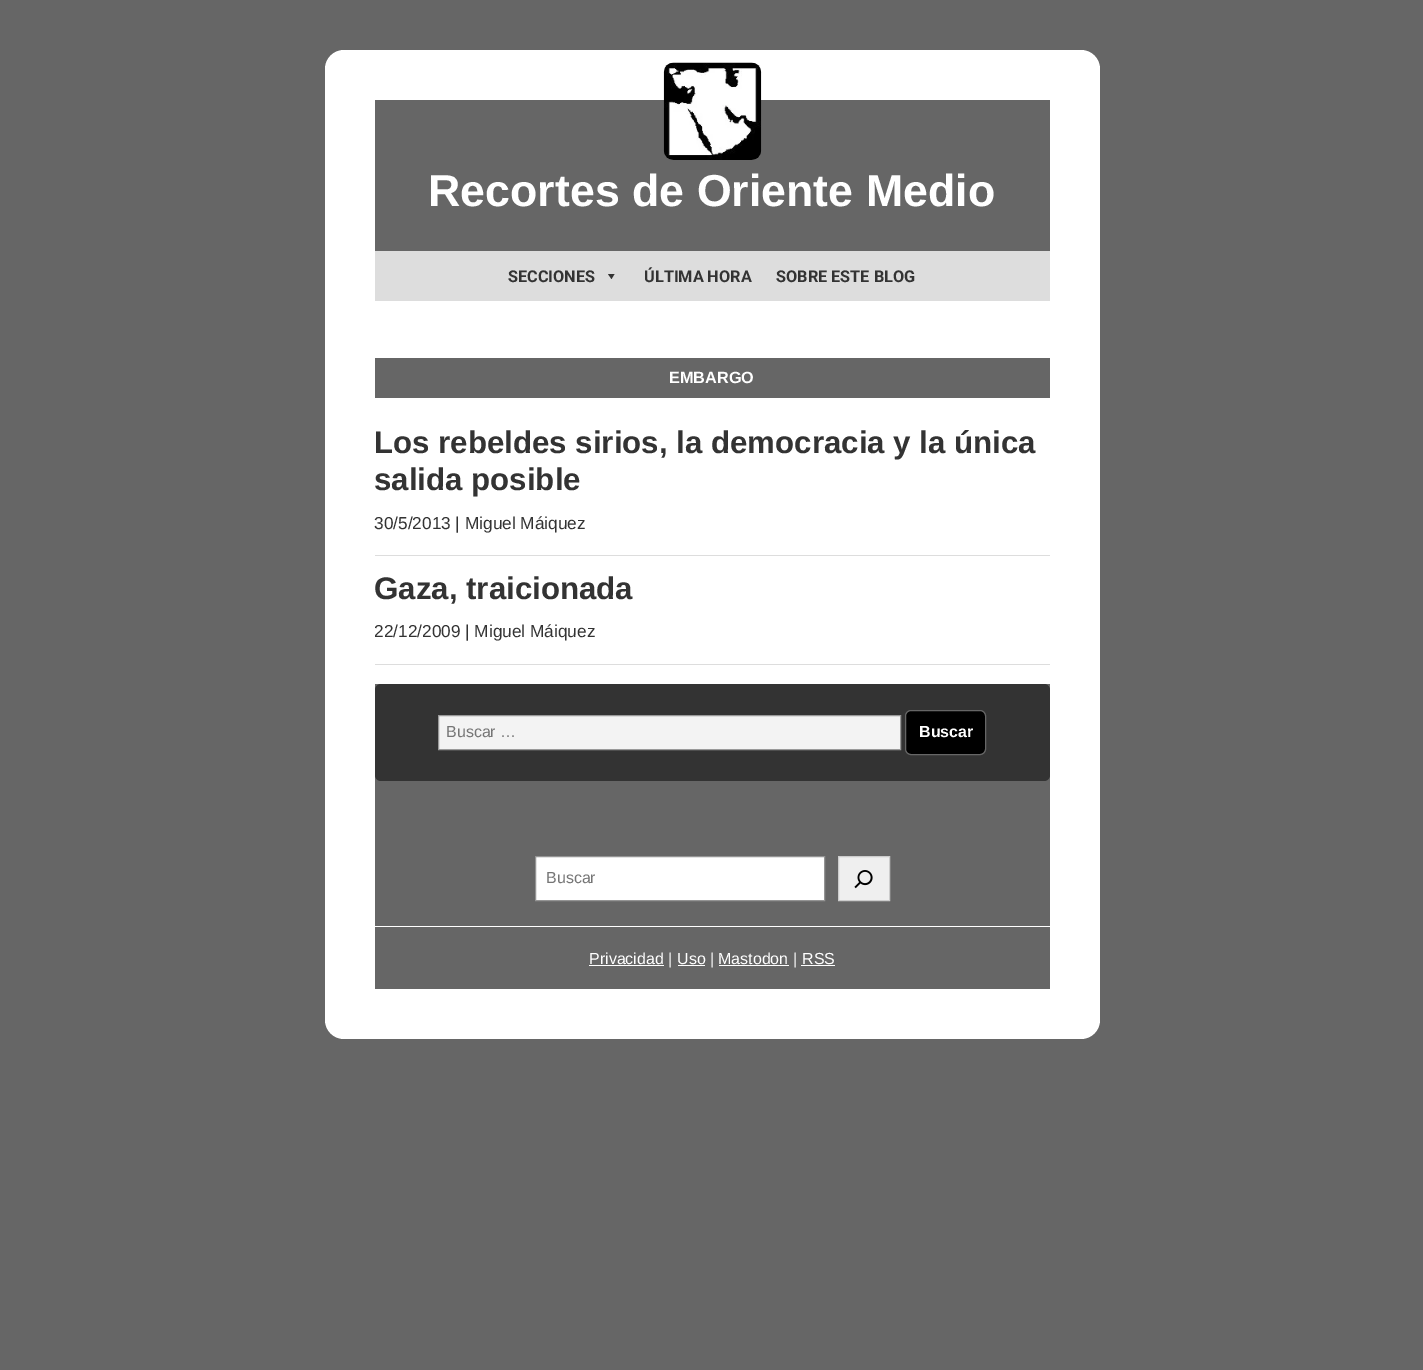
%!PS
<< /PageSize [1423 1370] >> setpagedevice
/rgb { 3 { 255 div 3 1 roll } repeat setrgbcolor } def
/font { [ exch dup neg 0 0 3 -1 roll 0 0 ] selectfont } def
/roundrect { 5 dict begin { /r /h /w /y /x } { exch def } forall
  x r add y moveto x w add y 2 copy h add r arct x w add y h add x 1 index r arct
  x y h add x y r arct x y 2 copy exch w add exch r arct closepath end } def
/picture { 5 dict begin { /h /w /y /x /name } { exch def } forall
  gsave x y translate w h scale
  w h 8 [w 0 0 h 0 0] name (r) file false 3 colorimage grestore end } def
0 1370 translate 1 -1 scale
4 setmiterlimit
102 102 102 rgb
0 0 1423 1370 rectfill
255 255 255 rgb
325 50 775 989 19 roundrect fill
102 102 102 rgb
375 100 675 151 rectfill
(img/1.rgb) 663 62 99 98 picture
221 221 221 rgb
375 251 675 50 rectfill
51 51 51 rgb
614.5 274 moveto 611.5 279 lineto 608 274 lineto closepath fill
[
  [375 358 675 40 102 102 102]
  [375 555 675 1 221 221 221]
  [375 664 675 1 221 221 221]
  [375 684 675 305 102 102 102]
  [375 926 675 1 255 255 255]
] { aload pop rgb rectfill } forall
51 51 51 rgb
375 684 675 97 6 roundrect fill
243 243 243 rgb
438.5 715.5 moveto 900.5 715.5 lineto 900.5 749.5 lineto 438.5 749.5 lineto closepath gsave fill grestore
153 153 153 rgb
stroke
0 0 0 rgb
905.5 710.5 80 44 5.5 roundrect gsave fill grestore
102 102 102 rgb
stroke
255 255 255 rgb
535.5 856.5 moveto 824.5 856.5 lineto 824.5 900.5 lineto 535.5 900.5 lineto closepath gsave fill grestore
148 148 148 rgb
stroke
239 239 239 rgb
838.5 856.5 moveto 889.5 856.5 lineto 889.5 900.5 lineto 838.5 900.5 lineto closepath gsave fill grestore
204 204 204 rgb
stroke
(img/2.rgb) 854 870 19 19 picture
[
  [589 965 75 1 255 255 255]
  [678 965 27 1 255 255 255]
  [719 965 70 1 255 255 255]
  [801 965 34 1 255 255 255]
] { aload pop rgb rectfill } forall
/LiberationSans-Bold 44.75 font
428 206 moveto (Recortes de Oriente Medio) show
/Roboto-Bold 16.25 font
51 51 51 rgb
[
  [(SECCIONES) 508 282]
  [(ÚLTIMA HORA) 644 282]
  [(SOBRE ESTE BLOG) 776 282]
] { aload pop moveto show } forall
/LiberationSans-Bold 16.25 font
255 255 255 rgb
669 383 moveto (EMBARGO) show
/LiberationSans-Bold 31.25 font
51 51 51 rgb
374 453 moveto (Los rebeldes sirios, la democracia y la única) show
374 490 moveto (salida posible) show
/LiberationSans-Regular 17.25 font
374 529 moveto (30/5/2013 | Miguel Máiquez) show
/LiberationSans-Bold 31.25 font
374 599 moveto (Gaza, traicionada) show
/LiberationSans-Regular 17.25 font
374 637 moveto (22/12/2009 | Miguel Máiquez) show
/LiberationSans-Regular 16 font
117 117 117 rgb
446 737 moveto (Buscar …) show
/LiberationSans-Bold 16 font
255 255 255 rgb
919 737 moveto (Buscar) show
/LiberationSans-Regular 16 font
117 117 117 rgb
546 883 moveto (Buscar) show
255 255 255 rgb
589 964 moveto (Privacidad) show
243 243 243 rgb
668 964 moveto (|) show
255 255 255 rgb
677 964 moveto (Uso) show
243 243 243 rgb
710 964 moveto (|) show
255 255 255 rgb
718 964 moveto (Mastodon) show
243 243 243 rgb
793 964 moveto (|) show
255 255 255 rgb
802 964 moveto (RSS) show
showpage
